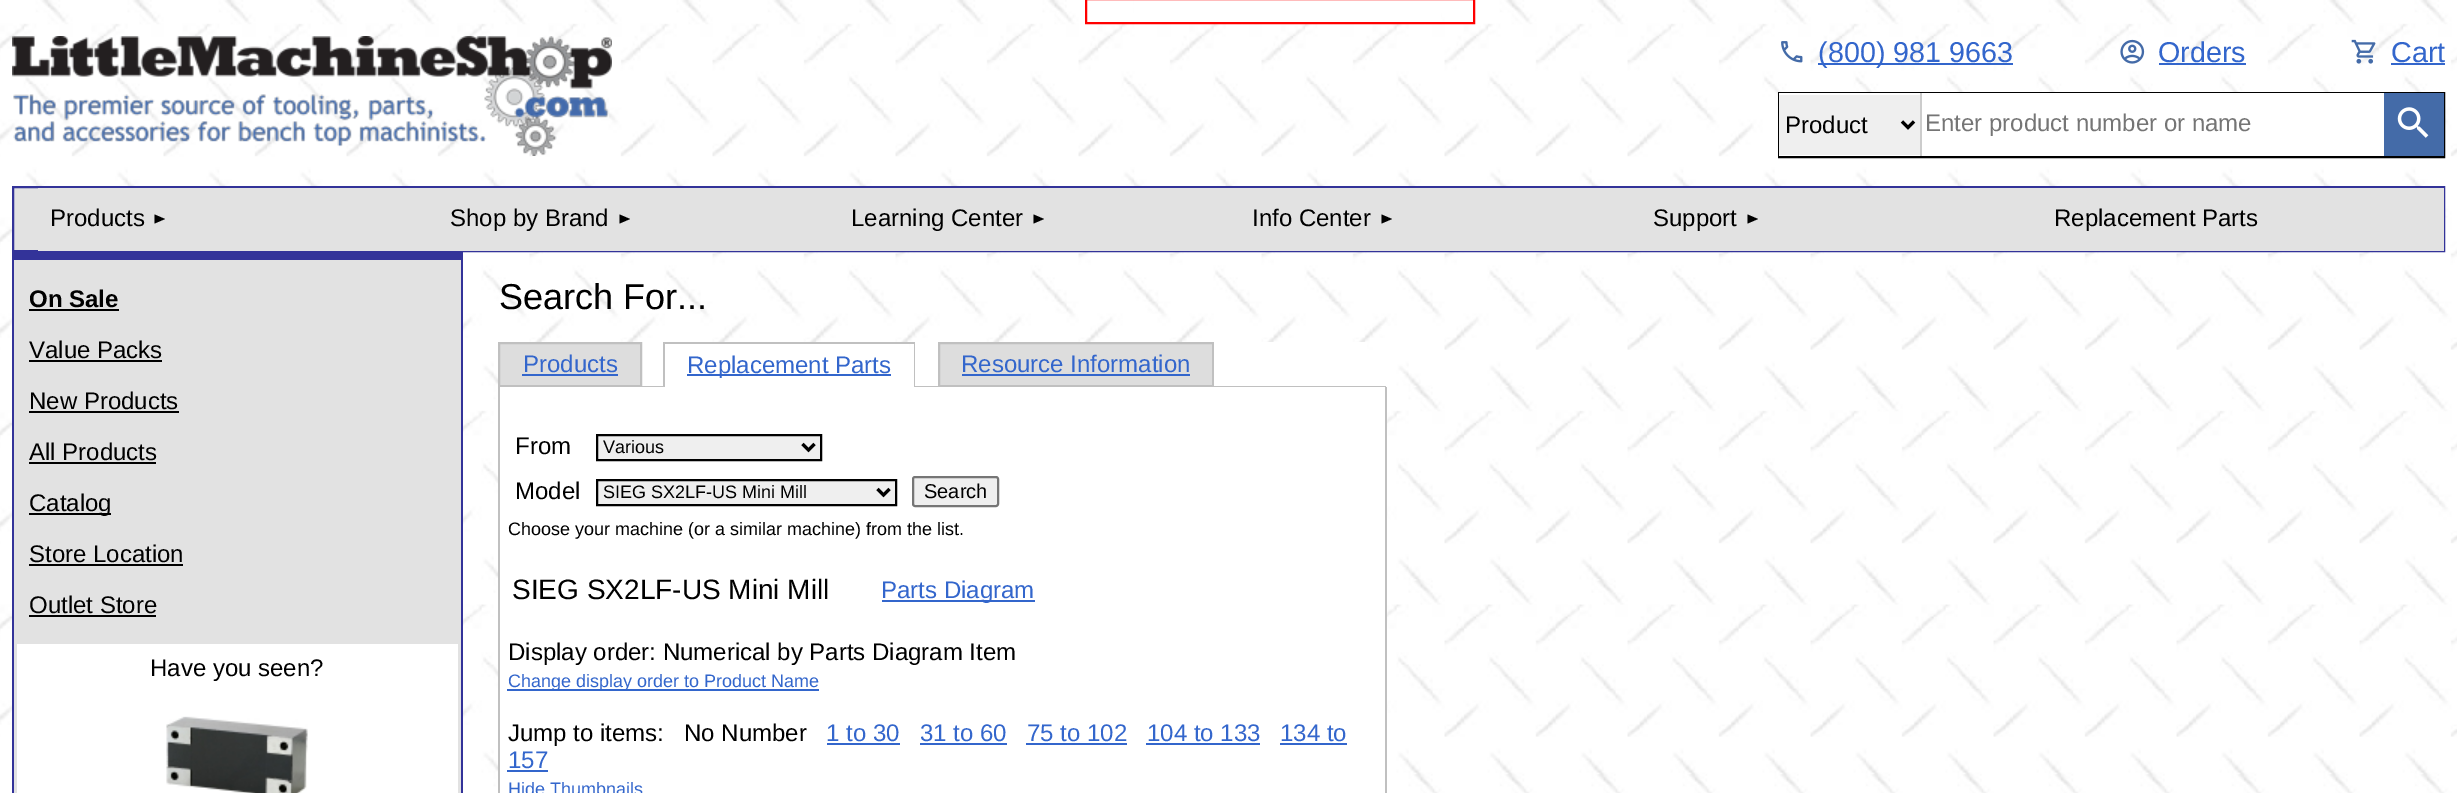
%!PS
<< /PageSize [2457 793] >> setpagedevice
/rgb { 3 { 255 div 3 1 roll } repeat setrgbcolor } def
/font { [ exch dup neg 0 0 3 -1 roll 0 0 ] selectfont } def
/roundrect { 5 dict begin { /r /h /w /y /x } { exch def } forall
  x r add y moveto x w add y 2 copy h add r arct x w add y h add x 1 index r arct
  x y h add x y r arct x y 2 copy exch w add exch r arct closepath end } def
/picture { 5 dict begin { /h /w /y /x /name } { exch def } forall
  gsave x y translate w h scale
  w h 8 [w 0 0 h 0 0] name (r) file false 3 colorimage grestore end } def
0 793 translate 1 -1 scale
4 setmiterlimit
255 255 255 rgb
0 0 2457 793 rectfill
(img/1.rgb) 0 0 2457 793 picture
1134 0 307 22 rectfill
255 0 0 rgb
2 setlinewidth
1086 -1 388 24 rectstroke
(img/2.rgb) 12 36 600 120 picture
(img/3.rgb) 1781 41 22 22 picture
51 102 204 rgb
1818 63 195 2 rectfill
(img/4.rgb) 2120 39 25 25 picture
2159 63 87 2 rectfill
(img/5.rgb) 2351 39 25 25 picture
2391 63 54 2 rectfill
0 0 0 rgb
1779 93 665 64 rectstroke
[
  [1779 93 605 63 255 255 255]
  [1920 93 2 63 204 204 204]
  [1779 95 141 60 239 239 239]
] { aload pop rgb rectfill } forall
0 0 0 rgb
3 setlinewidth
1902 121.5 moveto 1908 127.5 lineto 1914 121.5 lineto stroke
68 107 168 rgb
2384 93 60 63 rectfill
(img/6.rgb) 2397 107 32 31 picture
226 226 226 rgb
14 188 24 62 rectfill
51 51 153 rgb
2 setlinewidth
13 187 2431 64 rectstroke
226 226 226 rgb
38 188 2406 63 rectfill
0 0 0 rgb
154.5 223.5 moveto 154.5 214.5 lineto 165 219 lineto closepath fill
619.5 223.5 moveto 619.5 214.5 lineto 630 219 lineto closepath fill
1033.5 223.5 moveto 1033.5 214.5 lineto 1044 219 lineto closepath fill
1381.5 223.5 moveto 1381.5 214.5 lineto 1392 219 lineto closepath fill
1747.5 223.5 moveto 1747.5 214.5 lineto 1758 219 lineto closepath fill
[
  [14 260 447 533 226 226 226]
  [12 252 450 8 51 51 153]
  [461 252 2 541 51 51 153]
  [12 252 2 541 51 51 153]
  [29 309 90 2 0 0 0]
  [29 360 133 2 0 0 0]
  [29 411 150 2 0 0 0]
  [29 462 127 2 0 0 0]
  [29 513 82 2 0 0 0]
  [29 564 154 2 0 0 0]
  [29 615 127 2 0 0 0]
  [17 644 441 149 255 255 255]
] { aload pop rgb rectfill } forall
(img/7.rgb) 166 716 142 77 picture
221 221 221 rgb
499 343 moveto 641 343 lineto 641 386 lineto 499 386 lineto closepath gsave fill grestore
192 192 192 rgb
stroke
[
  [522 374 96 2 51 102 204]
  [665 344 244 43 255 255 255]
  [663 342 252 2 192 192 192]
  [914 342 1 45 192 192 192]
  [663 342 2 45 192 192 192]
  [687 374 204 2 51 102 204]
] { aload pop rgb rectfill } forall
221 221 221 rgb
939 343 moveto 1213 343 lineto 1213 386 lineto 939 386 lineto closepath gsave fill grestore
192 192 192 rgb
stroke
[
  [962 374 228 2 51 102 204]
  [1214 342 153 44 255 255 255]
  [1214 386 172 1 192 192 192]
  [642 386 21 1 192 192 192]
  [915 386 23 1 192 192 192]
  [500 387 885 406 255 255 255]
  [1385 387 2 406 192 192 192]
  [498 387 2 406 192 192 192]
] { aload pop rgb rectfill } forall
239 239 239 rgb
597 435 moveto 821 435 lineto 821 460 lineto 597 460 lineto closepath gsave fill grestore
0 0 0 rgb
stroke
3 setlinewidth
802.5 444 moveto 808.5 450 lineto 814.5 444 lineto stroke
239 239 239 rgb
597 480 moveto 896 480 lineto 896 505 lineto 597 505 lineto closepath gsave fill grestore
0 0 0 rgb
2 setlinewidth
stroke
3 setlinewidth
877.5 489 moveto 883.5 495 lineto 889.5 489 lineto stroke
239 239 239 rgb
913 477 85 29 2 roundrect gsave fill grestore
118 118 118 rgb
2 setlinewidth
stroke
[
  [882 600 153 2 51 102 204]
  [507 689 312 2 51 102 204]
  [827 743 73 2 51 102 204]
  [920 743 87 2 51 102 204]
  [1026 743 101 2 51 102 204]
  [1146 743 114 2 51 102 204]
  [1280 743 67 2 51 102 204]
  [507 770 41 2 51 102 204]
] { aload pop rgb rectfill } forall
/LiberationSans-Regular 28.75 font
[
  [(\(800\) 981 9663) 1818 62]
  [(Orders) 2158 62]
  [(Cart) 2391 62]
] { aload pop moveto show } forall
/LiberationSans-Regular 24 font
0 0 0 rgb
1785 133 moveto (Product) show
117 117 117 rgb
1925 131 moveto (Enter product number or name) show
0 0 0 rgb
[
  [(Products) 50 226]
  [(Shop by Brand) 450 226]
  [(Learning Center) 851 226]
  [(Info Center) 1252 226]
  [(Support) 1653 226]
  [(Replacement Parts) 2054 226]
] { aload pop moveto show } forall
/LiberationSans-Bold 24 font
29 307 moveto (On Sale) show
/LiberationSans-Regular 24 font
[
  [(Value Packs) 29 358]
  [(New Products) 29 409]
  [(All Products) 29 460]
  [(Catalog) 29 511]
  [(Store Location) 29 562]
  [(Outlet Store) 29 613]
  [(Have you seen?) 150 676]
] { aload pop moveto show } forall
/LiberationSans-Regular 36 font
499 309 moveto (Search For...) show
/LiberationSans-Regular 24 font
51 102 204 rgb
[
  [(Products) 523 372]
  [(Replacement Parts) 687 373]
  [(Resource Information) 961 372]
] { aload pop moveto show } forall
0 0 0 rgb
515 454 moveto (From) show
/LiberationSans-Regular 18 font
603 453 moveto (Various) show
/LiberationSans-Regular 24 font
515 499 moveto (Model) show
/LiberationSans-Regular 18 font
603 498 moveto (SIEG SX2LF-US Mini Mill) show
/LiberationSans-Regular 20 font
924 498 moveto (Search) show
/LiberationSans-Regular 18 font
508 535 moveto (Choose your machine \(or a similar machine\) from the list.) show
/LiberationSans-Regular 28 font
512 599 moveto (SIEG SX2LF-US Mini Mill) show
/LiberationSans-Regular 24 font
51 102 204 rgb
881 598 moveto (Parts Diagram) show
0 0 0 rgb
508 660 moveto (Display order: Numerical by Parts Diagram Item) show
/LiberationSans-Regular 18 font
51 102 204 rgb
508 687 moveto (Change display order to Product Name) show
/LiberationSans-Regular 24 font
0 0 0 rgb
508 741 moveto (Jump to items:   No Number) show
51 102 204 rgb
[
  [(1 to 30) 826 741]
  [(31 to 60) 920 741]
  [(75 to 102) 1027 741]
  [(104 to 133) 1147 741]
  [(134 to) 1280 741]
  [(157) 508 768]
] { aload pop moveto show } forall
/LiberationSans-Regular 18 font
508 795 moveto (Hide Thumbnails) show
showpage
